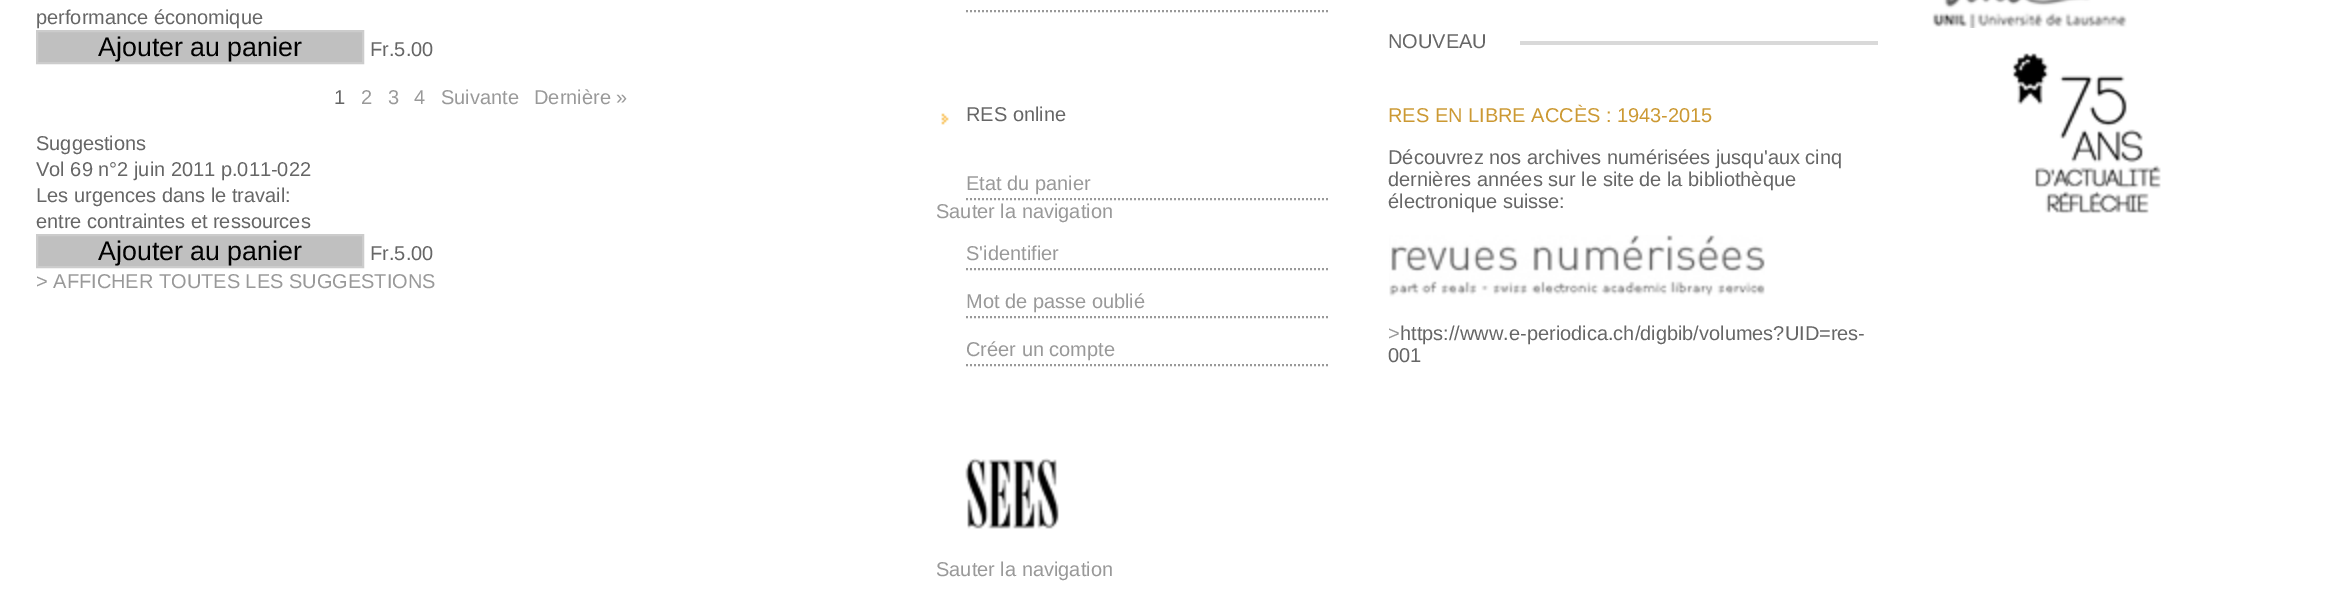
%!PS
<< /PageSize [2345 600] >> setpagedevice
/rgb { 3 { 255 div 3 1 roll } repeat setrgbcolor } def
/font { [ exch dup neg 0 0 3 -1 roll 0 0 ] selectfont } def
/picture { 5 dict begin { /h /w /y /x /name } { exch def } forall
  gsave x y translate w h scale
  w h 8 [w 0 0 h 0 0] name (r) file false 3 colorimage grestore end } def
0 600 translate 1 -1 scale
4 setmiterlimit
255 255 255 rgb
0 0 2345 600 rectfill
192 192 192 rgb
37 31 moveto 363 31 lineto 363 63 lineto 37 63 lineto closepath gsave fill grestore
204 204 204 rgb
2 setlinewidth
stroke
192 192 192 rgb
37 235 moveto 363 235 lineto 363 267 lineto 37 267 lineto closepath gsave fill grestore
204 204 204 rgb
stroke
153 153 153 rgb
[2 2] 0 setdash
966 11 moveto 1328 11 lineto stroke
(img/1.rgb) 941 113 8 12 picture
966 199 moveto 1328 199 lineto stroke
966 269 moveto 1328 269 lineto stroke
966 317 moveto 1328 317 lineto stroke
966 365 moveto 1328 365 lineto stroke
(img/2.rgb) 965 458 94 71 picture
217 217 217 rgb
1520 41 358 4 rectfill
(img/3.rgb) 1389 235 376 62 picture
(img/4.rgb) 1932 0 195 28 picture
(img/5.rgb) 2012 53 149 161 picture
/LiberationSans-Regular 20 font
102 102 102 rgb
36 24 moveto (performance économique) show
/LiberationSans-Regular 26.75 font
0 0 0 rgb
98 56 moveto (Ajouter au panier) show
/LiberationSans-Regular 20 font
102 102 102 rgb
370 56 moveto (Fr.5.00) show
334 104 moveto (1) show
153 153 153 rgb
[
  [(2) 361 104]
  [(3) 388 104]
  [(4) 414 104]
  [(Suivante) 441 104]
  [(Dernière ») 534 104]
] { aload pop moveto show } forall
102 102 102 rgb
[
  [(Suggestions) 36 150]
  [(Vol 69 n°2 juin 2011 p.011-022) 36 176]
  [(Les urgences dans le travail:) 36 202]
  [(entre contraintes et ressources) 36 228]
] { aload pop moveto show } forall
/LiberationSans-Regular 26.75 font
0 0 0 rgb
98 260 moveto (Ajouter au panier) show
/LiberationSans-Regular 20 font
102 102 102 rgb
370 260 moveto (Fr.5.00) show
153 153 153 rgb
36 288 moveto (> AFFICHER TOUTES LES SUGGESTIONS) show
102 102 102 rgb
966 121 moveto (RES online) show
153 153 153 rgb
[
  [(Etat du panier) 966 190]
  [(Sauter la navigation) 936 218]
  [(S'identifier) 966 260]
  [(Mot de passe oublié) 966 308]
  [(Créer un compte) 966 356]
  [(Sauter la navigation) 936 576]
] { aload pop moveto show } forall
102 102 102 rgb
1388 48 moveto (NOUVEAU) show
204 153 51 rgb
1388 122 moveto (RES EN LIBRE ACCÈS : 1943-2015) show
102 102 102 rgb
[
  [(Découvrez nos archives numérisées jusqu'aux cinq) 1388 164]
  [(dernières années sur le site de la bibliothèque) 1388 186]
  [(électronique suisse:) 1388 208]
] { aload pop moveto show } forall
153 153 153 rgb
1388 340 moveto (>) show
102 102 102 rgb
1400 340 moveto (https://www.e-periodica.ch/digbib/volumes?UID=res-) show
1388 362 moveto (001) show
showpage
